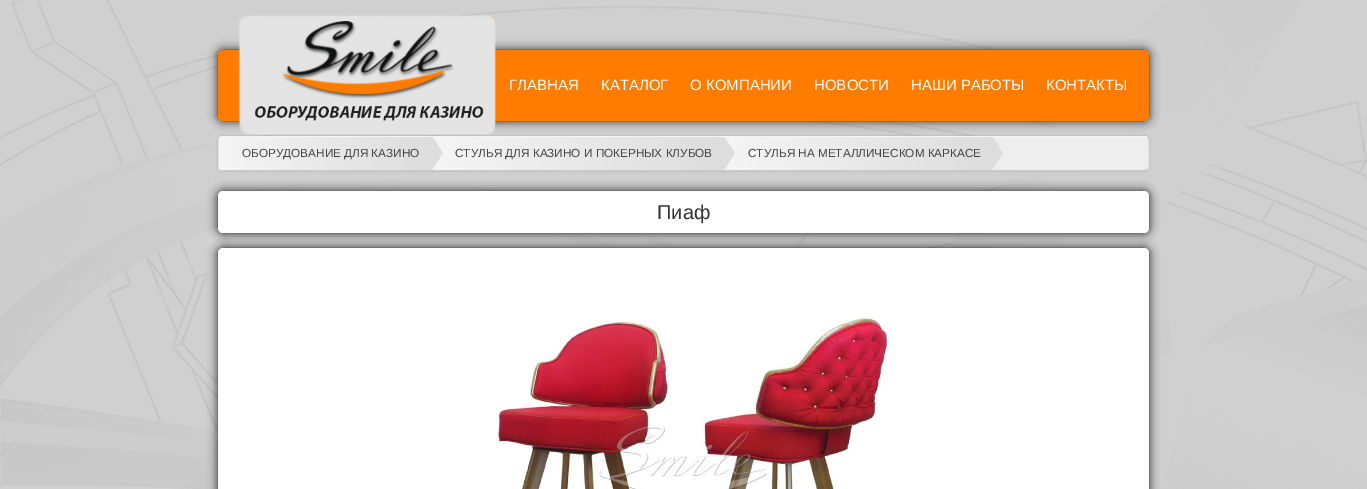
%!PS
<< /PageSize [1367 489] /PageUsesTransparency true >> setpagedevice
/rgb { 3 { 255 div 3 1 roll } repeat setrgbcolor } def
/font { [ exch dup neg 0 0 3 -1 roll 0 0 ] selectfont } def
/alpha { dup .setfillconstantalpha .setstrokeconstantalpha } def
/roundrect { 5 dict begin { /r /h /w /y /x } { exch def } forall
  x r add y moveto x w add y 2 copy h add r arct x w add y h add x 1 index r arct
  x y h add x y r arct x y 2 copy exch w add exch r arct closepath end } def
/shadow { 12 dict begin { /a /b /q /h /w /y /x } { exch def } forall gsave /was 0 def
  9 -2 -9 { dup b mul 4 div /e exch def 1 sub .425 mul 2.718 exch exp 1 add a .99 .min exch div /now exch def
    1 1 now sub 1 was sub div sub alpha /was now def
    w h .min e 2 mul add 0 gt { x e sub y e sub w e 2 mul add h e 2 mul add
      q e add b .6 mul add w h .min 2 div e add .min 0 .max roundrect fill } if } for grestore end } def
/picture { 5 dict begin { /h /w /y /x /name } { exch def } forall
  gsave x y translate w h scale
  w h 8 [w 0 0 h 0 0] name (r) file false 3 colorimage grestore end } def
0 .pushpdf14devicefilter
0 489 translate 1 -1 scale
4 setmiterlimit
255 255 255 rgb
0 0 1367 489 rectfill
(img/1.rgb) 0 0 1367 489 picture
0 0 0 rgb
218 50 931 71 5 5 0.9 shadow
255 124 0 rgb
218 50 931 71 5 roundrect fill
0 0 0 rgb
218 136 931 35 5 1 0.2 shadow
(img/2.rgb) 238 15 258 120 picture
238 238 238 rgb
218 136 931 35 5 roundrect fill
245 245 245 rgb
220 138 moveto 220.5 137 222 136.5 223 136.5 curveto 1144 136.5 lineto 1145 136.5 1146.5 137 1147 138 curveto stroke
229 229 229 rgb
1147 138 moveto 1148 138.5 1148.5 140 1148.5 141 curveto 1148.5 166 lineto 1148.5 167 1148 168.5 1147 169 curveto stroke
204 204 204 rgb
1147 169 moveto 1146.5 170 1145 170.5 1144 170.5 curveto 223 170.5 lineto 222 170.5 220.5 170 220 169 curveto stroke
229 229 229 rgb
220 169 moveto 219 168.5 218.5 167 218.5 166 curveto 218.5 141 lineto 218.5 140 219 138.5 220 138 curveto stroke
gsave
219 137 929 33 4 roundrect clip newpath
gsave 224 137 moveto 432 137 lineto 432 170 lineto 224 170 lineto 221 170 219 168 219 165 curveto 219 142 lineto 219 139 221 137 224 137 curveto closepath clip newpath
<< /ShadingType 2 /ColorSpace /DeviceRGB /Coords [219 154 432 154] /Extend [true true] /Function << /FunctionType 2 /Domain [0 1] /C0 [0.961 0.961 0.961] /C1 [0.867 0.867 0.867] /N 1 >> >> shfill grestore
grestore
gsave 432 137 moveto 724 137 lineto 724 170 lineto 432 170 lineto closepath clip newpath
<< /ShadingType 2 /ColorSpace /DeviceRGB /Coords [432 154 724 154] /Extend [true true] /Function << /FunctionType 2 /Domain [0 1] /C0 [0.961 0.961 0.961] /C1 [0.867 0.867 0.867] /N 1 >> >> shfill grestore
221 221 221 rgb
432 170 moveto 443 153 lineto 432.5 137 lineto 432 137 lineto closepath fill
gsave 724 137 moveto 992 137 lineto 992 170 lineto 724 170 lineto closepath clip newpath
<< /ShadingType 2 /ColorSpace /DeviceRGB /Coords [724 154 992 154] /Extend [true true] /Function << /FunctionType 2 /Domain [0 1] /C0 [0.961 0.961 0.961] /C1 [0.867 0.867 0.867] /N 1 >> >> shfill grestore
724 170 moveto 735 153 lineto 724.5 137 lineto 724 137 lineto closepath fill
992 170 moveto 1003 153 lineto 992.5 137 lineto 992 137 lineto closepath fill
0 0 0 rgb
218 191 931 42 5 5 0.9 shadow
255 255 255 rgb
218 191 931 42 5 roundrect fill
0 0 0 rgb
218 248 931 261 5 5 0.9 shadow
255 255 255 rgb
218 248 931 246 5 roundrect fill
(img/3.rgb) 496 316 394 173 picture
/LiberationSans-Regular 15 font
[
  [(ГЛАВНАЯ) 509 90]
  [(КАТАЛОГ) 601 90]
  [(О КОМПАНИИ) 690 90]
  [(НОВОСТИ) 814 90]
  [(НАШИ РАБОТЫ) 911 90]
  [(КОНТАКТЫ) 1046 90]
] { aload pop moveto show } forall
/LiberationSans-Regular 11.75 font
68 68 68 rgb
[
  [(ОБОРУДОВАНИЕ ДЛЯ КАЗИНО) 242 157]
  [(СТУЛЬЯ ДЛЯ КАЗИНО И ПОКЕРНЫХ КЛУБОВ) 455 157]
  [(СТУЛЬЯ НА МЕТАЛЛИЧЕСКОМ КАРКАСЕ) 748 157]
] { aload pop moveto show } forall
/LiberationSans-Regular 20 font
51 51 51 rgb
657 219 moveto (Пиаф) show
.poppdf14devicefilter showpage
